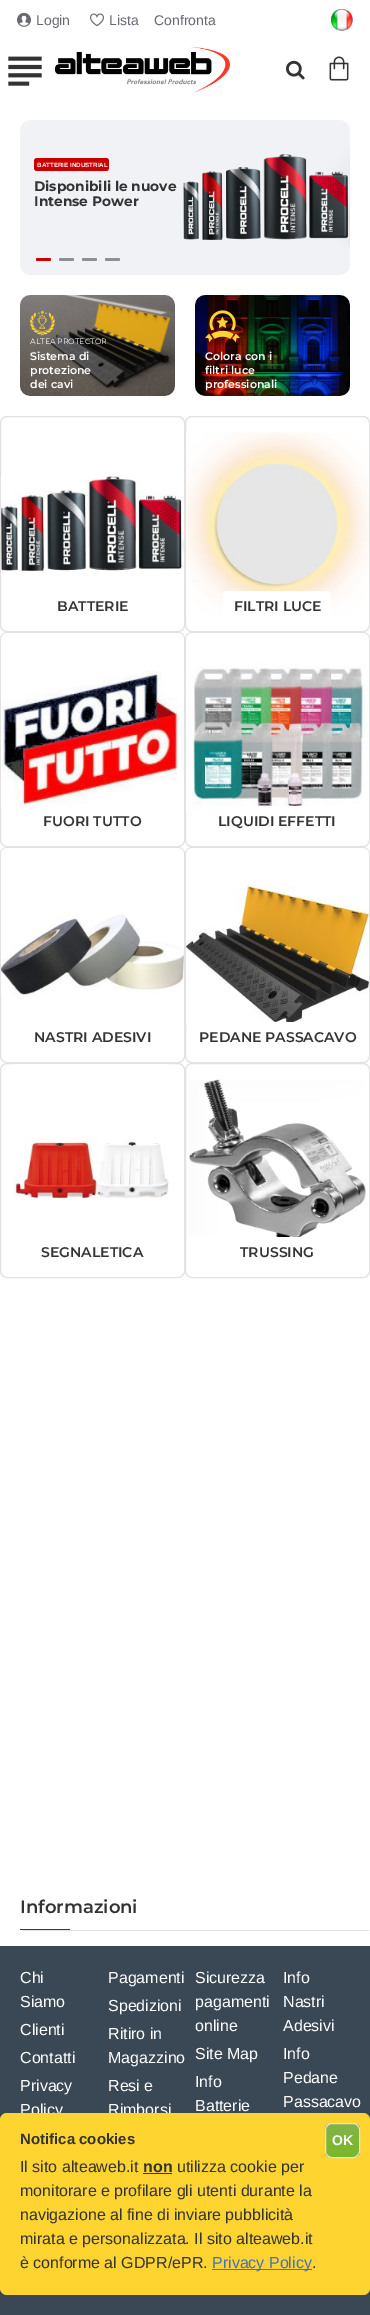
%!PS
<< /PageSize [370 2315] >> setpagedevice
/rgb { 3 { 255 div 3 1 roll } repeat setrgbcolor } def
/font { [ exch dup neg 0 0 3 -1 roll 0 0 ] selectfont } def
/roundrect { 5 dict begin { /r /h /w /y /x } { exch def } forall
  x r add y moveto x w add y 2 copy h add r arct x w add y h add x 1 index r arct
  x y h add x y r arct x y 2 copy exch w add exch r arct closepath end } def
/picture { 5 dict begin { /h /w /y /x /name } { exch def } forall
  gsave x y translate w h scale
  w h 8 [w 0 0 h 0 0] name (r) file false 3 colorimage grestore end } def
0 2315 translate 1 -1 scale
4 setmiterlimit
255 255 255 rgb
0 0 370 2315 rectfill
(img/1.rgb) 17 12 14 15 picture
(img/2.rgb) 90 13 14 14 picture
(img/3.rgb) 331 9 22 22 picture
(img/4.rgb) 55 47 175 46 picture
(img/5.rgb) 8 56 34 30 picture
(img/6.rgb) 286 60 19 20 picture
(img/7.rgb) 329 56 20 25 picture
(img/8.rgb) 20 120 330 155 picture
202 0 0 rgb
34 158 75 13 3 roundrect fill
(img/9.rgb) 183 154 166 87 picture
36 258 15 3 1.5 roundrect fill
139 145 152 rgb
59 258 15 3 1.5 roundrect fill
82 258 15 3 1.5 roundrect fill
105 258 15 3 1.5 roundrect fill
(img/10.rgb) 20 295 155 101 picture
(img/11.rgb) 30 310 25 26 picture
(img/12.rgb) 195 295 155 101 picture
(img/13.rgb) 205 310 35 33 picture
226 226 226 rgb
0.5 416.5 184 215 6.5 roundrect stroke
(img/14.rgb) 1 475 183 101 picture
185.5 416.5 184 215 6.5 roundrect stroke
(img/15.rgb) 186 431 183 185 picture
255 255 255 rgb
223 591 108 31 4 roundrect fill
226 226 226 rgb
0.5 632.5 184 214 6.5 roundrect stroke
(img/16.rgb) 1 633 183 175 picture
185.5 632.5 184 214 6.5 roundrect stroke
(img/17.rgb) 186 633 183 180 picture
255 255 255 rgb
208 806 138 31 4 roundrect fill
226 226 226 rgb
0.5 847.5 184 215 6.5 roundrect stroke
(img/18.rgb) 1 848 183 147 picture
185.5 847.5 184 215 6.5 roundrect stroke
(img/19.rgb) 186 848 183 177 picture
255 255 255 rgb
188 1022 178 31 4 roundrect fill
226 226 226 rgb
0.5 1063.5 184 214 6.5 roundrect stroke
(img/20.rgb) 13 1064 156 135 picture
185.5 1063.5 184 214 6.5 roundrect stroke
(img/21.rgb) 189 1079 177 158 picture
[
  [22 1930 347 1 226 226 226]
  [20 1929 50 1 202 0 0]
  [0 1946 370 174 58 71 84]
  [0 2288 370 27 58 71 84]
] { aload pop rgb rectfill } forall
/LiberationSans-Regular 14 font
105 105 115 rgb
[
  [(Login) 36 25]
  [(Lista) 109 25]
  [(Confronta) 154 25]
] { aload pop moveto show } forall
/LiberationSans-Bold 6.25 font
255 255 255 rgb
37 167 moveto (BATTERIE INDUSTRIAL) show
/Montserrat-Bold 13.75 font
51 51 51 rgb
34 191 moveto (Disponibili le nuove) show
34 206 moveto (Intense Power) show
/Montserrat-Regular 7.75 font
255 255 255 rgb
30 344 moveto (ALTEA PROTECTOR) show
/Montserrat-SemiBold 11 font
[
  [(Sistema di) 30 360]
  [(protezione) 30 374]
  [(dei cavi) 30 388]
  [(Colora con i) 205 360]
  [(filtri luce) 205 374]
  [(professionali) 205 388]
] { aload pop moveto show } forall
/Montserrat-SemiBold 14 font
51 51 51 rgb
[
  [(BATTERIE) 57 611]
  [(FILTRI LUCE) 234 611]
  [(FUORI TUTTO) 43 826]
  [(LIQUIDI EFFETTI) 218 826]
  [(NASTRI ADESIVI) 34 1042]
  [(PEDANE PASSACAVO) 199 1042]
  [(SEGNALETICA) 41 1257]
  [(TRUSSING) 240 1257]
] { aload pop moveto show } forall
/Montserrat-SemiBold 18 font
20 1913 moveto (Informazioni) show
/LiberationSans-Regular 16 font
255 255 255 rgb
[
  [(Chi) 20 1983]
  [(Siamo) 20 2007]
  [(Pagamenti) 108 1983]
  [(Sicurezza) 195 1983]
  [(pagamenti) 195 2007]
  [(online) 195 2031]
  [(Info) 283 1983]
  [(Nastri) 283 2007]
  [(Adesivi) 283 2031]
  [(Spedizioni) 108 2011]
  [(Clienti) 20 2035]
  [(Ritiro in) 108 2039]
  [(Magazzino) 108 2063]
  [(Site Map) 195 2059]
  [(Info) 283 2059]
  [(Pedane) 283 2083]
  [(Passacavo) 283 2107]
  [(Contatti) 20 2063]
  [(Privacy) 20 2091]
  [(Policy) 20 2115]
  [(Resi e) 108 2091]
  [(Rimborsi) 108 2115]
  [(Info) 195 2087]
  [(Batterie) 195 2111]
] { aload pop moveto show } forall
254 212 48 rgb
0 2113 370 182 7 roundrect fill
/LiberationSans-Bold 15 font
51 51 51 rgb
20 2144 moveto (Notifica cookies) show
/LiberationSans-Regular 16 font
20 2172 moveto (Il sito alteaweb.it) show
/LiberationSans-Bold 16 font
143 2172 moveto (non) show
143 2173 29 1 rectfill
/LiberationSans-Regular 16 font
[
  [(utilizza cookie per) 177 2172]
  [(monitorare e profilare gli utenti durante la) 20 2196]
  [(navigazione al fine di inviare pubblicità) 20 2220]
  [(mirata e personalizzata. Il sito alteaweb.it) 20 2244]
  [(è conforme al GDPR/ePR.) 20 2268]
] { aload pop moveto show } forall
67 113 188 rgb
212 2269 100 1 rectfill
212 2268 moveto (Privacy Policy) show
51 51 51 rgb
312 2268 moveto (.) show
gsave
325 2123 35 35 7 roundrect clip newpath
gsave 325 2124 moveto 360 2124 lineto 360 2157 lineto 325 2157 lineto closepath clip newpath
<< /ShadingType 2 /ColorSpace /DeviceRGB /Coords [343 2124 343 2157] /Extend [true true] /Function << /FunctionType 2 /Domain [0 1] /C0 [0.518 0.702 0.29] /C1 [0.475 0.725 0.157] /N 1 >> >> shfill grestore
grestore
226 226 226 rgb
325.5 2123.5 34 34 6.5 roundrect stroke
/LiberationSans-Bold 14 font
255 255 255 rgb
332 2145 moveto (OK) show
showpage
